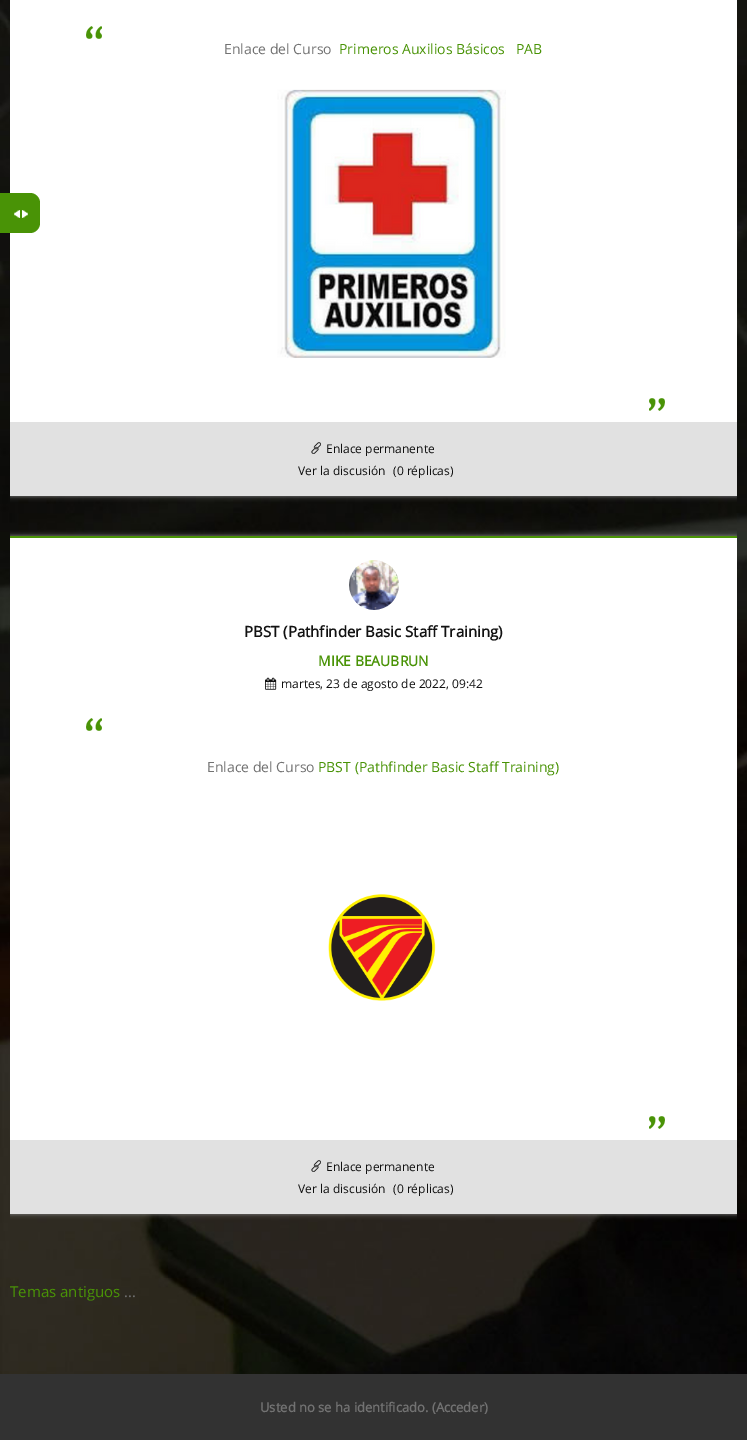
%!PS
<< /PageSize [747 1440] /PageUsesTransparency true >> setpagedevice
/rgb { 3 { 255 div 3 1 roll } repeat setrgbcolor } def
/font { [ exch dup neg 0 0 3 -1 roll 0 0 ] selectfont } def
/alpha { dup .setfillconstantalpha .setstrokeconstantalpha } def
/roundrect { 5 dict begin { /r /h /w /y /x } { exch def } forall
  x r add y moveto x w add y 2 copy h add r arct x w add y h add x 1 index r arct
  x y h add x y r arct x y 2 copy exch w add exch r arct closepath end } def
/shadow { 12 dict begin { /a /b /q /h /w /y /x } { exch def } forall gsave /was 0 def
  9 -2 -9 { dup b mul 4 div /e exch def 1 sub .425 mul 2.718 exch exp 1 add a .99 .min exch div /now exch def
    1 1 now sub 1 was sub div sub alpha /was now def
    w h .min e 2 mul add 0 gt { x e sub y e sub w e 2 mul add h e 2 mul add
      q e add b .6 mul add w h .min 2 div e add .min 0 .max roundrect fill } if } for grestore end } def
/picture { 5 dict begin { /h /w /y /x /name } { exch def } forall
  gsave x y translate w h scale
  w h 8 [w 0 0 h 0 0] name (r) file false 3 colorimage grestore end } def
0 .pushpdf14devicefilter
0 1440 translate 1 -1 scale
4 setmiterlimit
255 255 255 rgb
0 0 747 1440 rectfill
(img/1.rgb) 0 0 747 1374 picture
gsave
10 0 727 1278 rectclip
136 136 136 rgb
10 -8 727 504 0 2.5 1 shadow
grestore
10 0 727 422 rectfill
(img/2.rgb) 86 26 579 385 picture
(img/3.rgb) 277 89 229 269 picture
225 225 225 rgb
10 422 727 74 rectfill
(img/4.rgb) 311 442 10 12 picture
gsave
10 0 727 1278 rectclip
136 136 136 rgb
10 536 727 678 0 2.5 1 shadow
grestore
255 255 255 rgb
10 538 727 602 rectfill
73 147 6 rgb
10 536 727 2 rectfill
(img/5.rgb) 349 560 50 50 picture
(img/6.rgb) 265 677 12 13 picture
(img/7.rgb) 86 718 579 411 picture
(img/8.rgb) 328 894 108 107 picture
225 225 225 rgb
10 1140 727 74 rectfill
(img/4.rgb) 311 1160 10 12 picture
73 147 6 rgb
0 193 moveto 30 193 lineto 35.5 193 40 197.5 40 203 curveto 40 223 lineto 40 228.5 35.5 233 30 233 curveto 0 233 lineto closepath fill
(img/9.rgb) 14 210 14 8 picture
50 50 50 rgb
0 1374 747 66 rectfill
/OpenSans-Regular 14 font
114 114 114 rgb
224 54 moveto (Enlace del Curso) show
73 147 6 rgb
339 54 moveto (Primeros Auxilios Básicos) show
516 54 moveto (PAB) show
/OpenSans-Regular 12 font
17 17 17 rgb
[
  [(Enlace permanente) 326 453]
  [(Ver la discusión) 298 475]
  [(\(0 réplicas\)) 393 475]
] { aload pop moveto show } forall
/OpenSans-Bold 15 font
244 637 moveto (PBST \(Pathfinder Basic Staff Training\)) show
/OpenSans-Bold 14 font
73 147 6 rgb
318 666 moveto (MIKE BEAUBRUN) show
/OpenSans-Regular 12 font
17 17 17 rgb
281 688 moveto (martes, 23 de agosto de 2022, 09:42) show
/OpenSans-Regular 14 font
114 114 114 rgb
207 772 moveto (Enlace del Curso) show
73 147 6 rgb
318 772 moveto (PBST \(Pathfinder Basic Staff Training\)) show
/OpenSans-Regular 12 font
17 17 17 rgb
[
  [(Enlace permanente) 326 1171]
  [(Ver la discusión) 298 1193]
  [(\(0 réplicas\)) 393 1193]
] { aload pop moveto show } forall
/OpenSans-Regular 15 font
73 147 6 rgb
10 1297 moveto (Temas antiguos) show
114 114 114 rgb
124 1297 moveto (...) show
/OpenSans-Bold 13 font
260 1412 moveto (Usted no se ha identificado. \(Acceder\)) show
.poppdf14devicefilter showpage
